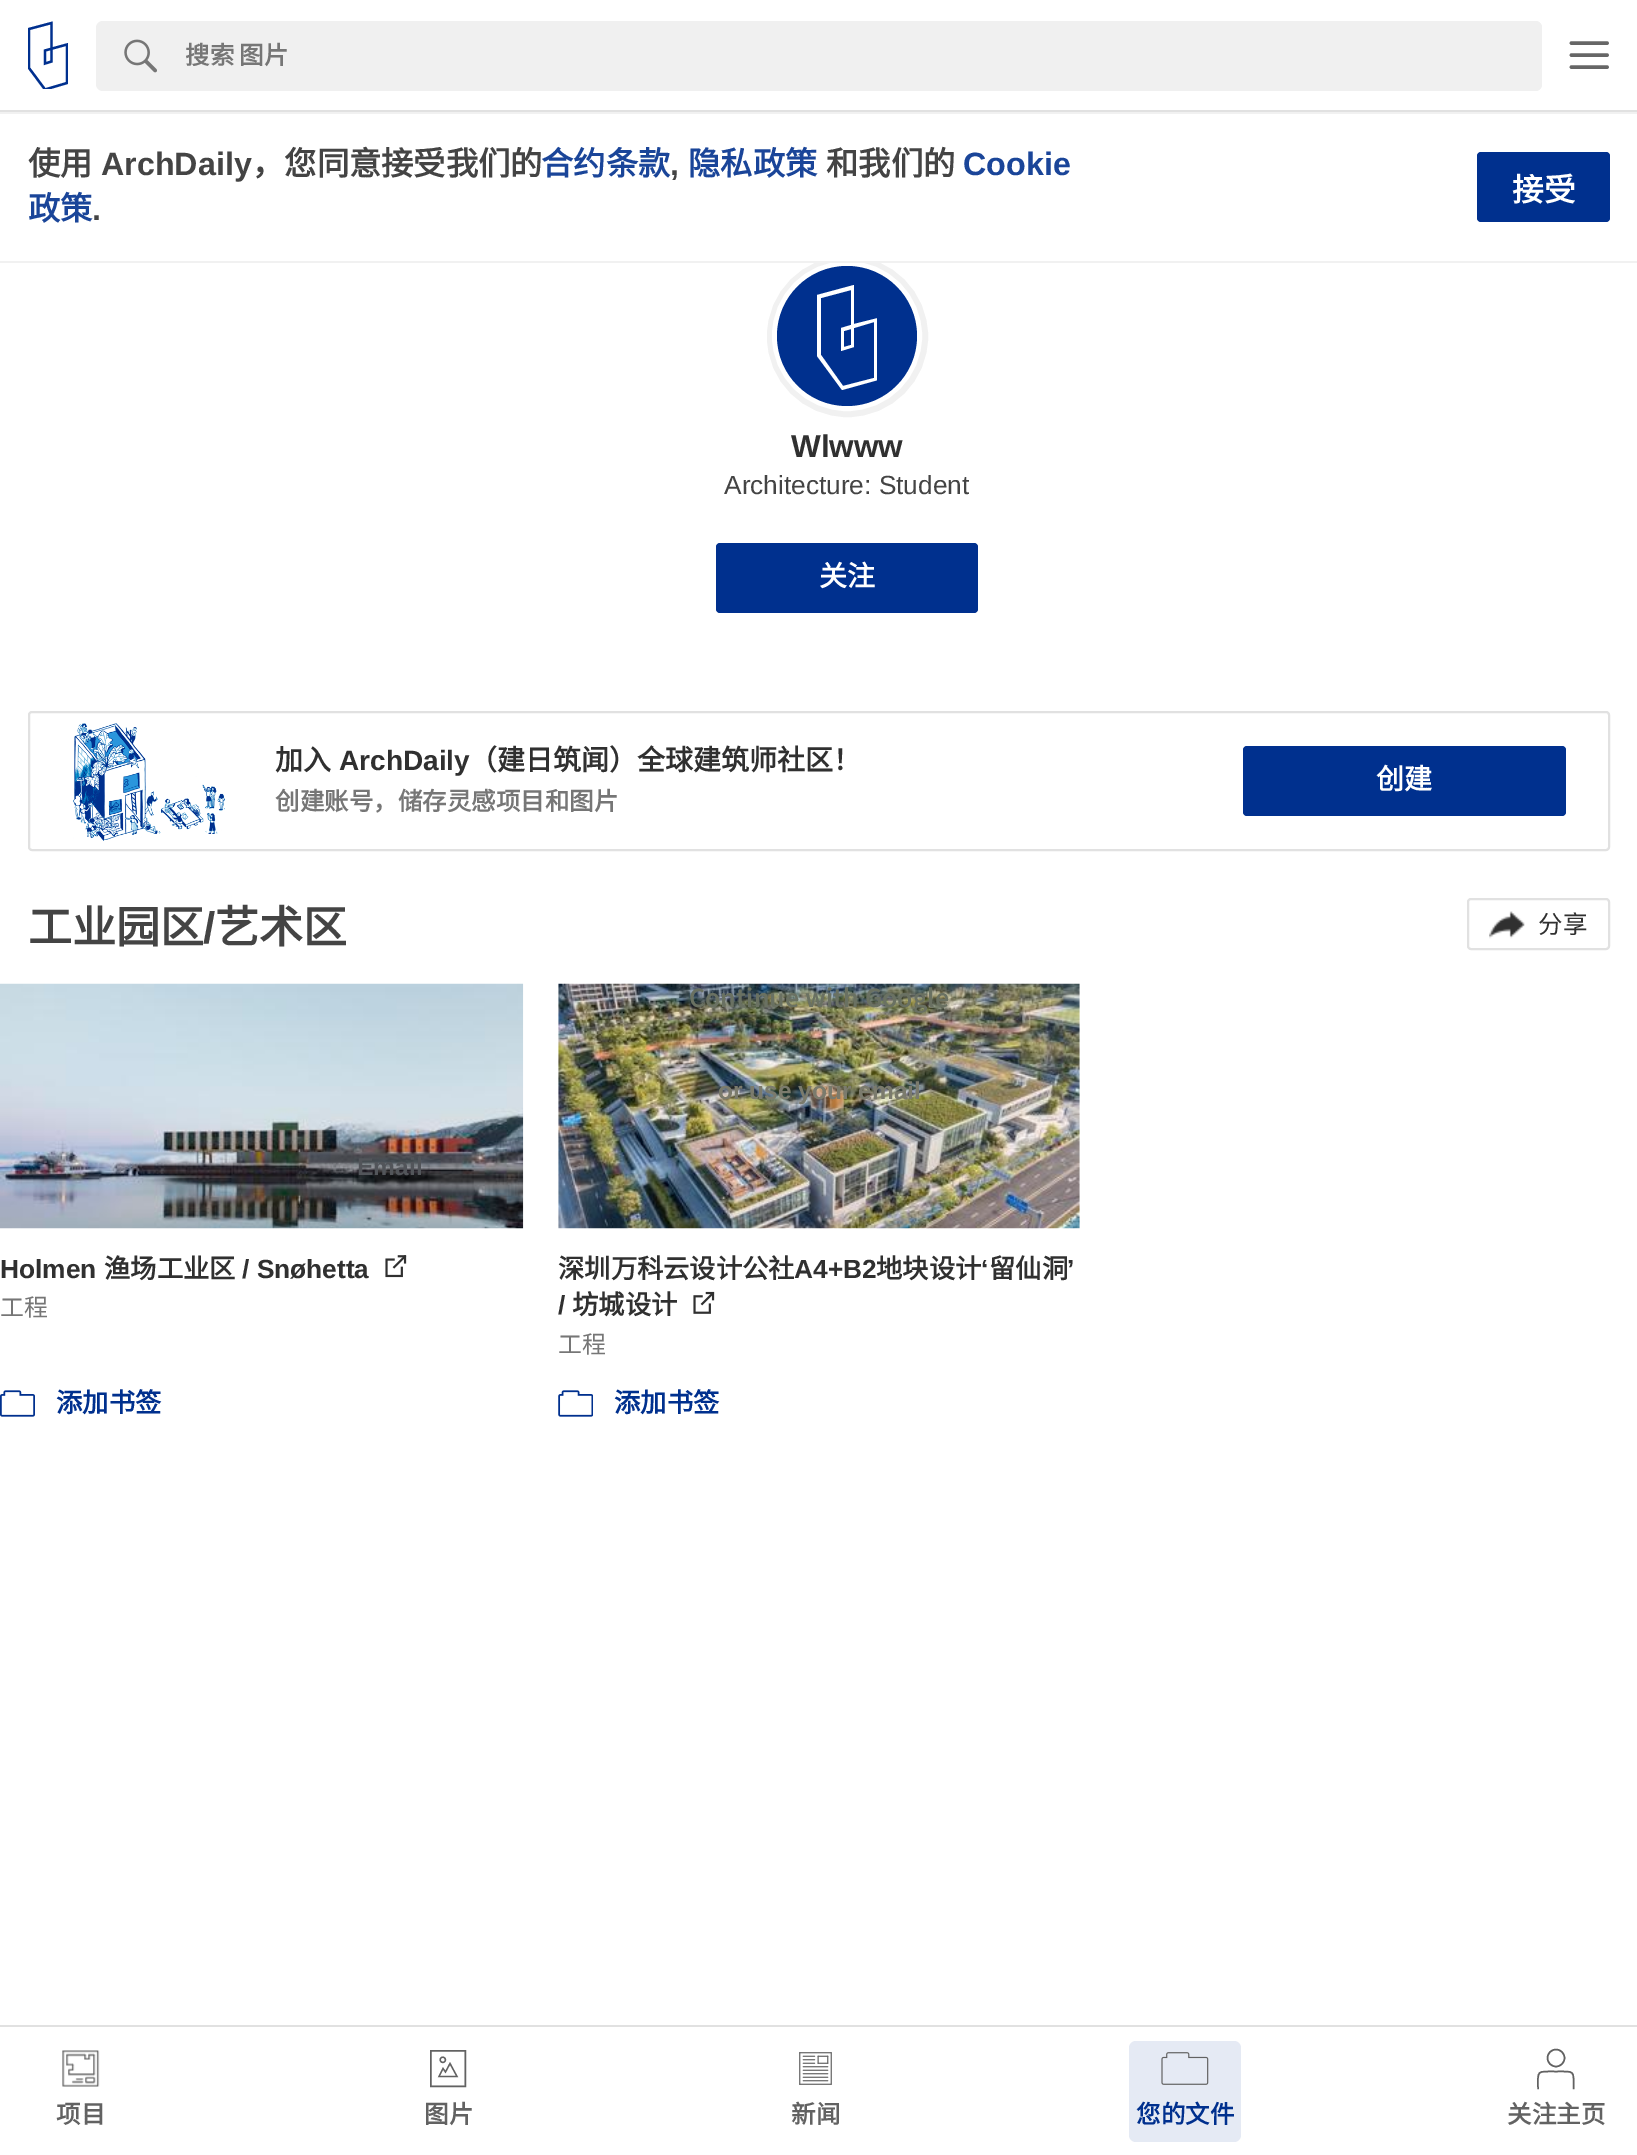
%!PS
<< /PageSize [1637 2155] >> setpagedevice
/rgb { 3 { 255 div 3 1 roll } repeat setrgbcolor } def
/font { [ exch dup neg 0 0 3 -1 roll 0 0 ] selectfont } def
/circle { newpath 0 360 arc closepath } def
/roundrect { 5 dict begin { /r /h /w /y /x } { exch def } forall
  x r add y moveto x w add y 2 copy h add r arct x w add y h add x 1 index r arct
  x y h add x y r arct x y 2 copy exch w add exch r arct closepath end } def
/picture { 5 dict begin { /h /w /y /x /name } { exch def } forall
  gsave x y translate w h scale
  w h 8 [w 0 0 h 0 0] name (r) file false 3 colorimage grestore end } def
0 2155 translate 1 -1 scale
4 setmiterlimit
255 255 255 rgb
0 0 1637 2155 rectfill
225 225 225 rgb
0 110 1637 2 rectfill
gsave
28 21 40 68 rectclip
0 48 143 rgb
2.3 setlinewidth
29 68 moveto 29 29 lineto 51.5 23 lineto 51.5 61.5 lineto 45 63.5 lineto 45 50.5 lineto 67 44.5 lineto 67 83 lineto 45 89.5 lineto closepath stroke
grestore
240 240 240 rgb
96 21 1446 70 7 roundrect fill
(img/1.rgb) 124 39 33 34 picture
186 21 moveto 1535 21 lineto 1539 21 1542 24 1542 28 curveto 1542 84 lineto 1542 88 1539 91 1535 91 curveto 186 91 lineto closepath fill
102 102 102 rgb
3.6 setlinewidth
1 setlinecap
1571.5 43 moveto 1607 43 lineto 1571.5 55 moveto 1607 55 lineto 1571.5 67 moveto 1607 67 lineto stroke
241 241 241 rgb
11 setlinewidth
0 setlinecap
847.5 336.5 75 circle stroke
255 255 255 rgb
820 256 55 5 rectfill
241 241 241 rgb
0 112 1637 2 rectfill
255 255 255 rgb
5 setlinewidth
847 336 72.5 circle stroke
241 241 241 rgb
0 261 1637 2 rectfill
0 48 142 rgb
1477 152 133 70 4 roundrect fill
847 336 70 circle fill
gsave
817 285 60 105 rectclip
255 255 255 rgb
842 390 moveto 817 356 lineto 817 295 lineto 854 285 lineto 854 324 lineto 878 318 lineto 878 380 lineto closepath 821 355 moveto 843 386 lineto 874 378 lineto 874 322 lineto 854 328 lineto 854 347 lineto 841 351 lineto 841 328 lineto 851 325 lineto 851 290 lineto 821 298 lineto closepath 844 331 moveto 844 347 lineto 851 345 lineto 851 329 lineto closepath fill
grestore
716 543 262 70 4 roundrect fill
225 225 225 rgb
2 setlinewidth
29 712 1580 138 3 roundrect stroke
(img/2.rgb) 73 723 152 118 picture
0 48 142 rgb
1243 746 323 70 4 roundrect fill
225 225 225 rgb
1468 899 141 50 3 roundrect stroke
(img/3.rgb) 1489 911 36 28 picture
(img/4.rgb) 0 983 524 246 picture
(img/5.rgb) 385 1255 22 23 picture
(img/6.rgb) 0 1390 35 27 picture
(img/7.rgb) 558 983 522 246 picture
(img/8.rgb) 693 1291 22 23 picture
(img/9.rgb) 558 1390 35 27 picture
0 2025 1637 2 rectfill
(img/10.rgb) 62 2050 38 37 picture
98 98 98 rgb
1.5 setlinewidth
430.75 2050.75 34.5 35.5 rectstroke
1.3 setlinewidth
1 setlinecap
450 2063.5 moveto 457 2076.5 lineto 439 2076.5 lineto 443 2068.5 lineto 445.5 2072 lineto closepath stroke
0 setlinecap
442.8 2059.8 2.6 circle stroke
(img/11.rgb) 799 2052 33 33 picture
229 234 244 rgb
1129 2041 112 101 7 roundrect fill
(img/12.rgb) 1161 2052 48 33 picture
98 98 98 rgb
1.5 setlinewidth
1556 2058 8.5 circle stroke
2 setlinecap
1573.5 2088.5 moveto 1573.5 2070 1575.5 2071.5 1556 2071.5 curveto 1536 2071.5 1538 2070 1538 2088.5 curveto stroke
/NotoSansCJKSC-Bold 24.5 font
118 118 118 rgb
185 64 moveto (搜索 图片) show
/NotoSansCJKSC-Bold 32.25 font
68 68 68 rgb
28 175 moveto (使用) show
/LiberationSans-Bold 32.25 font
101 175 moveto (ArchDaily) show
/NotoSansCJKSC-Bold 32.25 font
252 175 moveto (，您同意接受我们的) show
26 69 153 rgb
541 175 moveto (合约条款) show
/LiberationSans-Bold 32.25 font
68 68 68 rgb
670 175 moveto (,) show
/NotoSansCJKSC-Bold 32.25 font
26 69 153 rgb
688 175 moveto (隐私政策) show
68 68 68 rgb
826 175 moveto (和我们的) show
/LiberationSans-Bold 32.25 font
26 69 153 rgb
963 175 moveto (Cookie) show
/NotoSansCJKSC-Bold 32.25 font
28 220 moveto (政策) show
/LiberationSans-Bold 32.25 font
68 68 68 rgb
92 220 moveto (.) show
/NotoSansCJKSC-Bold 31.5 font
255 255 255 rgb
1512 201 moveto (接受) show
/LiberationSans-Bold 31.5 font
48 48 48 rgb
791 457 moveto (Wlwww) show
/LiberationSans-Regular 26.25 font
68 68 68 rgb
724 494 moveto (Architecture: Student) show
/NotoSansCJKSC-Bold 28 font
255 255 255 rgb
819 586 moveto (关注) show
48 48 48 rgb
275 770 moveto (加入) show
/LiberationSans-Bold 28 font
339 770 moveto (ArchDaily) show
/NotoSansCJKSC-Bold 28 font
469 770 moveto (（建日筑闻）全球建筑师社区！) show
/NotoSansCJKSC-Bold 24.5 font
118 118 118 rgb
275 810 moveto (创建账号，储存灵感项目和图片) show
/NotoSansCJKSC-Bold 28 font
255 255 255 rgb
1376 789 moveto (创建) show
/NotoSansCJKSC-Bold 44 font
68 68 68 rgb
28 943 moveto (工业园区) show
/LiberationSans-Bold 44 font
203 943 moveto (/) show
/NotoSansCJKSC-Bold 44 font
215 943 moveto (艺术区) show
/NotoSansCJKSC-Regular 24.5 font
48 48 48 rgb
1538 933 moveto (分享) show
/LiberationSans-Bold 26.25 font
0 1278 moveto (Holmen) show
/NotoSansCJKSC-Bold 26.25 font
104 1278 moveto (渔场工业区) show
/LiberationSans-Bold 26.25 font
242 1278 moveto (/ Snøhetta) show
/NotoSansCJKSC-Regular 24 font
118 118 118 rgb
0 1316 moveto (工程) show
/NotoSansCJKSC-Bold 26.25 font
0 48 142 rgb
56 1412 moveto (添加书签) show
48 48 48 rgb
558 1278 moveto (深圳万科云设计公社) show
/LiberationSans-Bold 26.25 font
794 1278 moveto (A4+B2) show
/NotoSansCJKSC-Bold 26.25 font
876 1278 moveto (地块设计) show
/LiberationSans-Bold 26.25 font
981 1278 moveto (‘) show
/NotoSansCJKSC-Bold 26.25 font
989 1278 moveto (留仙洞) show
/LiberationSans-Bold 26.25 font
1067 1278 moveto (’) show
558 1314 moveto (/) show
/NotoSansCJKSC-Bold 26.25 font
572 1314 moveto (坊城设计) show
/NotoSansCJKSC-Regular 24 font
118 118 118 rgb
558 1353 moveto (工程) show
/NotoSansCJKSC-Bold 26.25 font
0 48 142 rgb
614 1412 moveto (添加书签) show
/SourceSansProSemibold-SemiBold 28 font
106 113 98 rgb
689 1007 moveto (Continue with Google) show
/LiberationSans-Bold 24.5 font
123 123 109 rgb
718 1099 moveto (or use your email) show
82 85 90 rgb
357 1175 moveto (Email) show
/NotoSansCJKSC-Bold 24.5 font
98 98 98 rgb
[
  [(项目) 56 2123]
  [(图片) 424 2123]
  [(新闻) 791 2123]
] { aload pop moveto show } forall
0 48 142 rgb
1136 2123 moveto (您的文件) show
98 98 98 rgb
1507 2123 moveto (关注主页) show
showpage
